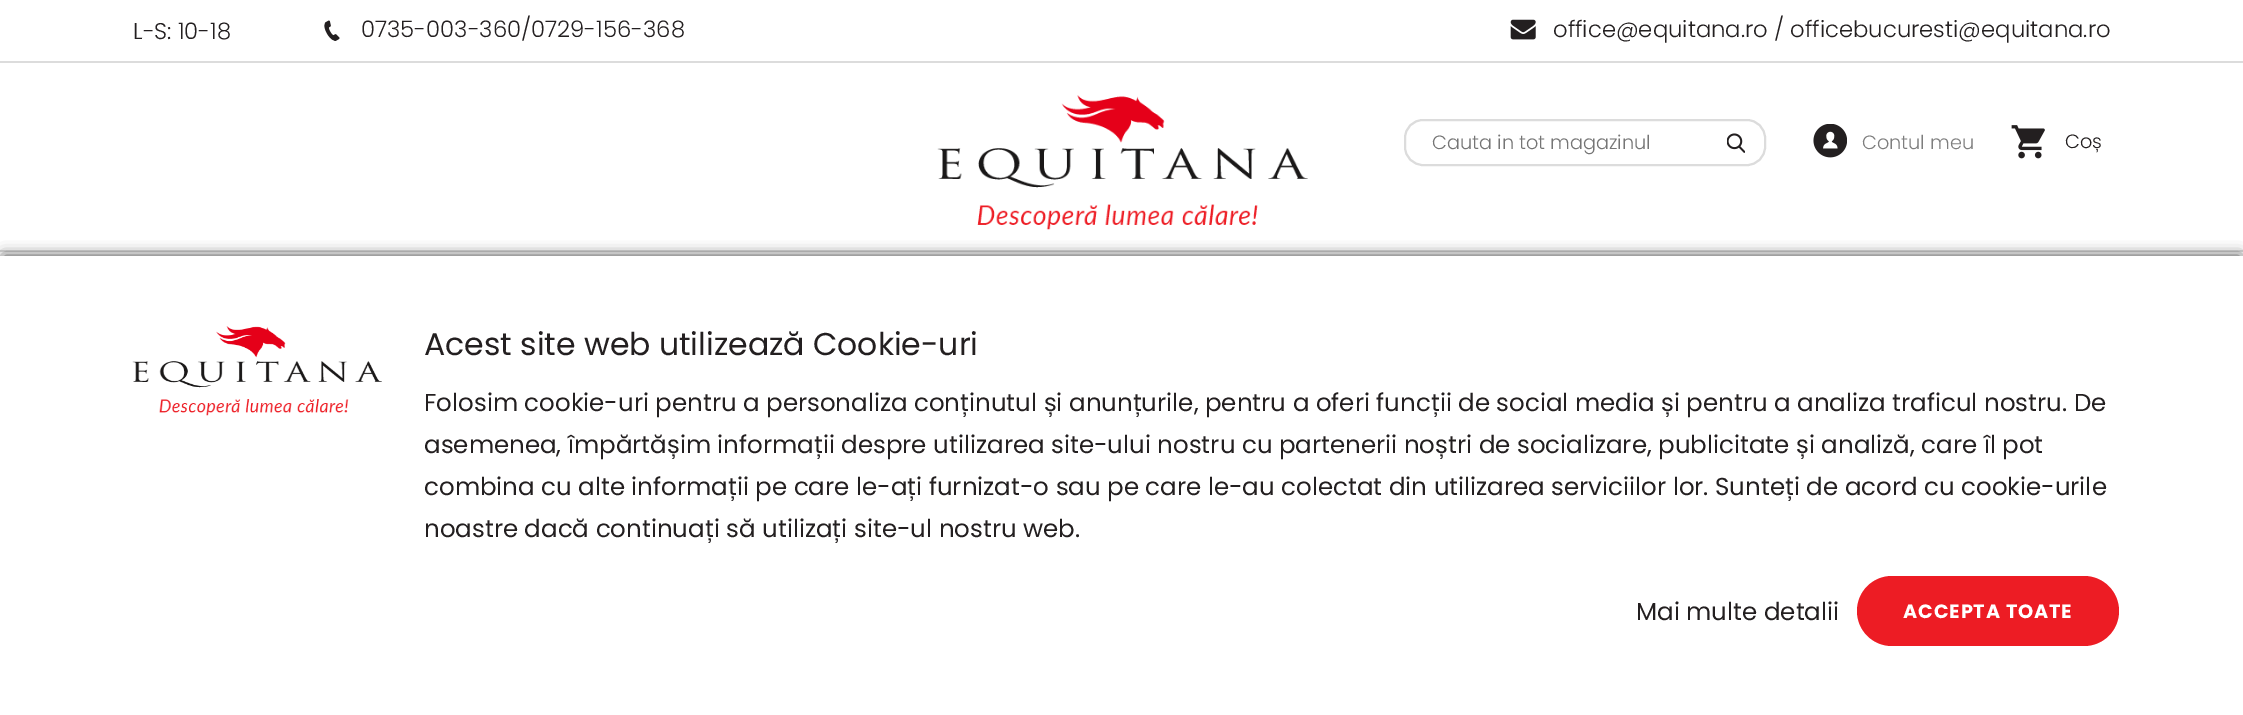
%!PS
<< /PageSize [2243 715] /PageUsesTransparency true >> setpagedevice
/rgb { 3 { 255 div 3 1 roll } repeat setrgbcolor } def
/font { [ exch dup neg 0 0 3 -1 roll 0 0 ] selectfont } def
/alpha { dup .setfillconstantalpha .setstrokeconstantalpha } def
/roundrect { 5 dict begin { /r /h /w /y /x } { exch def } forall
  x r add y moveto x w add y 2 copy h add r arct x w add y h add x 1 index r arct
  x y h add x y r arct x y 2 copy exch w add exch r arct closepath end } def
/shadow { 12 dict begin { /a /b /q /h /w /y /x } { exch def } forall gsave /was 0 def
  9 -2 -9 { dup b mul 4 div /e exch def 1 sub .425 mul 2.718 exch exp 1 add a .99 .min exch div /now exch def
    1 1 now sub 1 was sub div sub alpha /was now def
    w h .min e 2 mul add 0 gt { x e sub y e sub w e 2 mul add h e 2 mul add
      q e add b .6 mul add w h .min 2 div e add .min 0 .max roundrect fill } if } for grestore end } def
/picture { 5 dict begin { /h /w /y /x /name } { exch def } forall
  gsave x y translate w h scale
  w h 8 [w 0 0 h 0 0] name (r) file false 3 colorimage grestore end } def
0 .pushpdf14devicefilter
0 715 translate 1 -1 scale
4 setmiterlimit
255 255 255 rgb
0 0 2243 715 rectfill
220 220 220 rgb
0 61 2243 2 rectfill
(img/1.rgb) 324 20 16 21 picture
(img/2.rgb) 1510 19 26 21 picture
(img/3.rgb) 937 95 371 135 picture
2 setlinewidth
1405 120 360 45 18 roundrect stroke
(img/4.rgb) 1727 133 18 20 picture
(img/5.rgb) 1813 124 34 34 picture
(img/6.rgb) 2011 125 34 34 picture
0 250 2243 2 rectfill
0 0 0 rgb
4 256 2236 453 0 7 0.75 shadow
255 255 255 rgb
0 256 2243 459 rectfill
(img/7.rgb) 132 326 250 90 picture
237 28 36 rgb
1857 576 262 70 35 roundrect fill
/Poppins-Light 22.75 font
35 31 32 rgb
[
  [(L-S: 10-18) 133 39]
  [(0735-003-360/0729-156-368) 361 37]
  [(office@equitana.ro / officebucuresti@equitana.ro) 1553 37]
] { aload pop moveto show } forall
/Poppins-Light 19.25 font
117 117 117 rgb
1432 149 moveto (Cauta in tot magazinul) show
126 126 126 rgb
1862 149 moveto (Contul meu) show
35 31 32 rgb
2065 148 moveto (Coș) show
/Poppins-Regular 31.5 font
424 355 moveto (Acest site web utilizează Cookie-uri) show
/Poppins-Regular 24.5 font
[
  [(Folosim cookie-uri pentru a personaliza conținutul și anunțurile, pentru a oferi funcții de social media și pentru a analiza traficul nostru. De) 424 411]
  [(asemenea, împărtășim informații despre utilizarea site-ului nostru cu partenerii noștri de socializare, publicitate și analiză, care îl pot) 424 453]
  [(combina cu alte informații pe care le-ați furnizat-o sau pe care le-au colectat din utilizarea serviciilor lor. Sunteți de acord cu cookie-urile) 424 495]
  [(noastre dacă continuați să utilizați site-ul nostru web.) 424 537]
  [(Mai multe detalii) 1636 620]
] { aload pop moveto show } forall
/Poppins-Bold 19.25 font
255 255 255 rgb
1903 618 moveto 0.9 0 (ACCEPTA TOATE) ashow
.poppdf14devicefilter showpage
